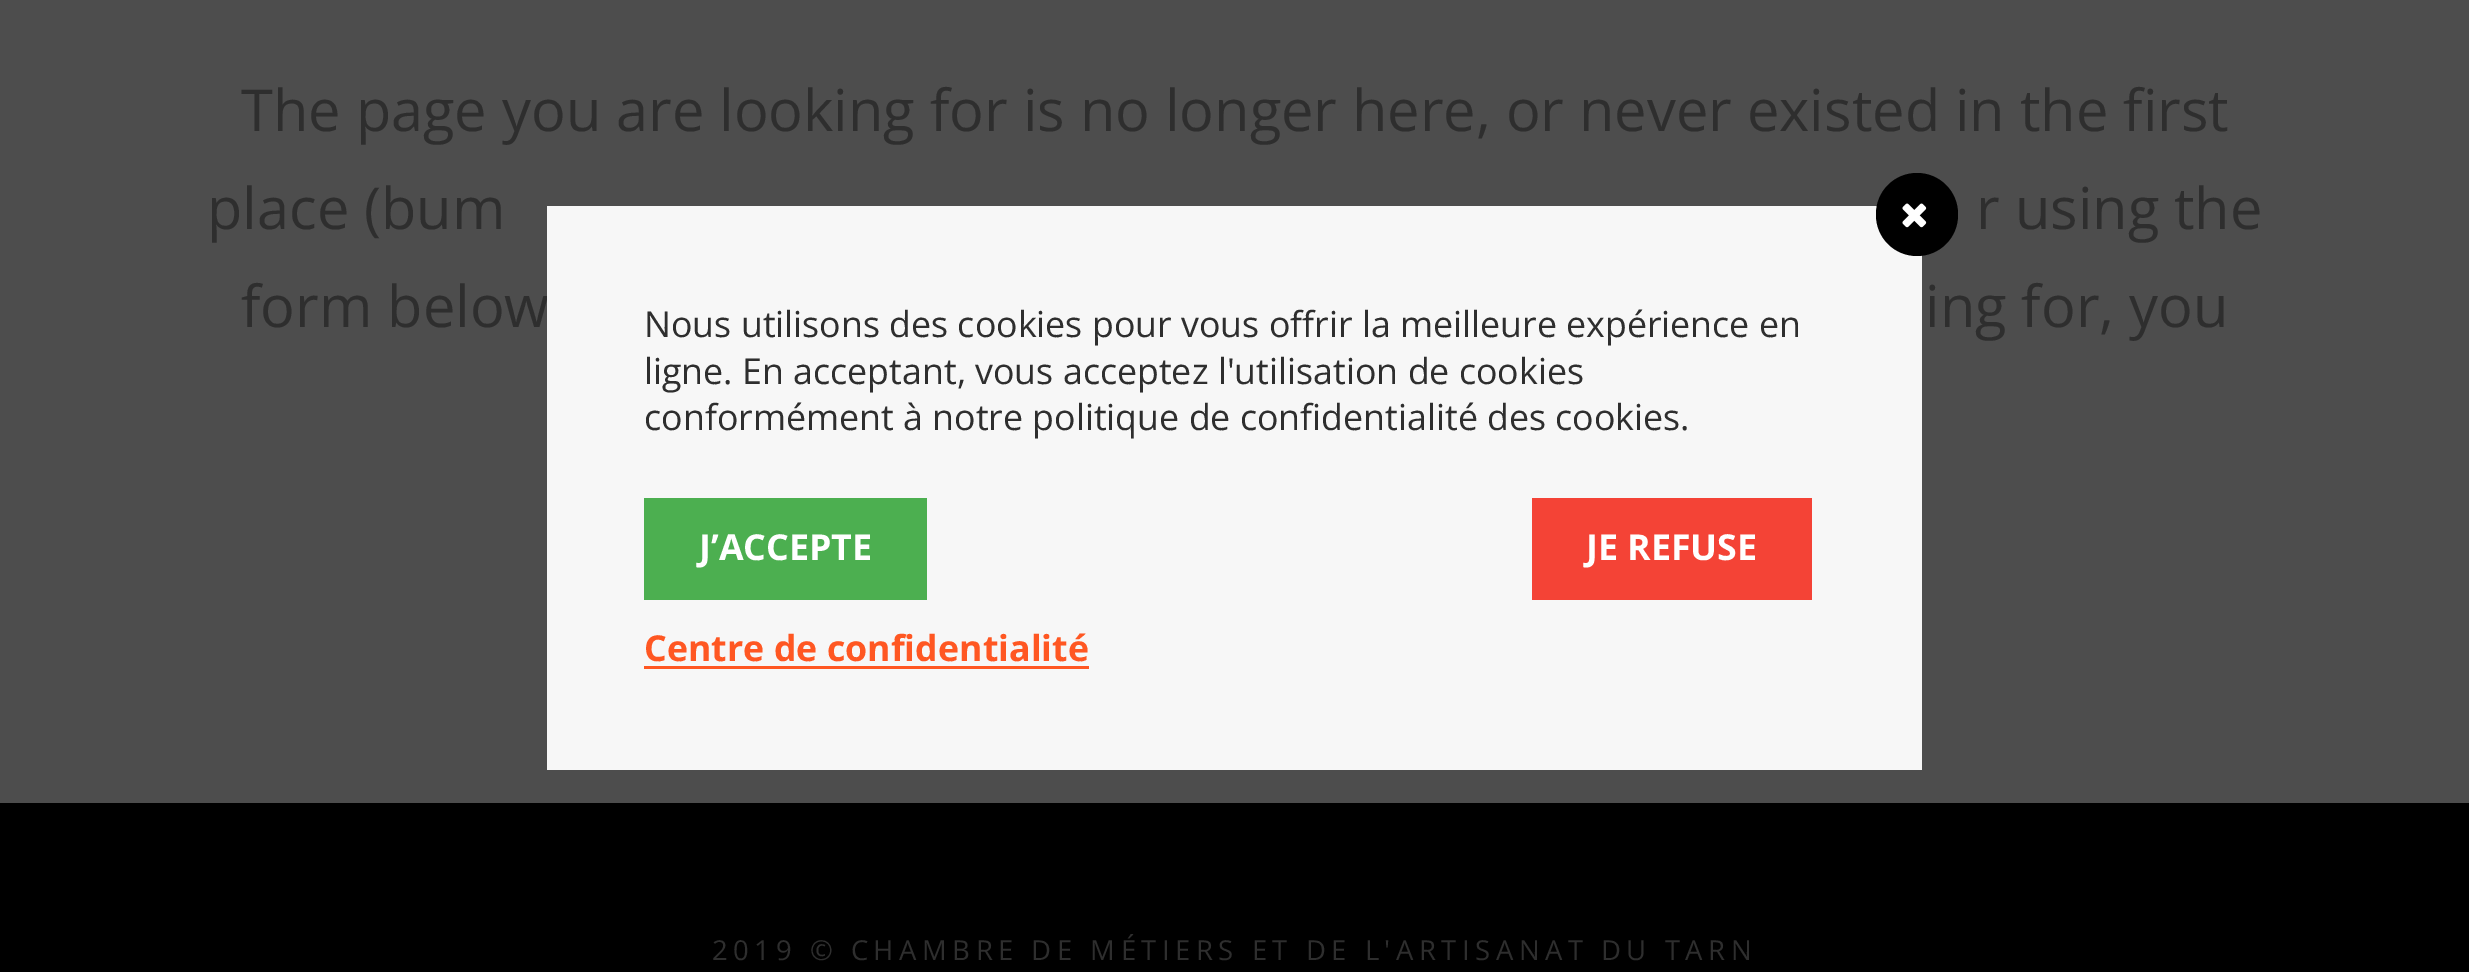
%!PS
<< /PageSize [2469 972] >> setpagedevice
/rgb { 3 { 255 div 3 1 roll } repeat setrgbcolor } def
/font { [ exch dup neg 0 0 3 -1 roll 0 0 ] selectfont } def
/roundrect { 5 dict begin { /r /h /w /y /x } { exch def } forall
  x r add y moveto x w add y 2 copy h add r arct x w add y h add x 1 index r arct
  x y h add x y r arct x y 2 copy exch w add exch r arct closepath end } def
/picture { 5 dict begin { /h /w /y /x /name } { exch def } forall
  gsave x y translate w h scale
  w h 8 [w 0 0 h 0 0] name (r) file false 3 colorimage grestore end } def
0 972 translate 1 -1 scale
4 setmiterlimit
77 77 77 rgb
0 0 2469 972 rectfill
0 0 0 rgb
0 803 2469 169 rectfill
/OpenSans-Regular 57.75 font
46 46 46 rgb
[
  [(The page you are looking for is no longer here, or never existed in the first) 241 131]
  [(place \(bum) 207 229]
  [(r using the) 1976 229]
  [(form below) 241 327]
  [(ing for, you) 1925 327]
] { aload pop moveto show } forall
/OpenSans-Regular 27.5 font
712 960 moveto 5.5 0 (2019 © CHAMBRE DE MÉTIERS ET DE L'ARTISANAT DU TARN) ashow
247 247 247 rgb
547 206 1375 564 rectfill
0 0 0 rgb
1876 173 82 83 41 roundrect fill
(img/1.rgb) 1902 203 25 25 picture
/OpenSans-Regular 35.75 font
46 46 46 rgb
[
  [(Nous utilisons des cookies pour vous offrir la meilleure expérience en) 644 337]
  [(ligne. En acceptant, vous acceptez l'utilisation de cookies) 644 384]
  [(conformément à notre politique de confidentialité des cookies.) 644 430]
] { aload pop moveto show } forall
76 175 80 rgb
644 498 283 102 rectfill
/OpenSans-Bold 35.75 font
255 255 255 rgb
699 560 moveto (J’ACCEPTE) show
244 67 54 rgb
1532 498 280 102 rectfill
255 255 255 rgb
1586 560 moveto (JE REFUSE) show
255 87 34 rgb
644 661 moveto (Centre de confidentialité) show
644 666 445 3 rectfill
showpage
